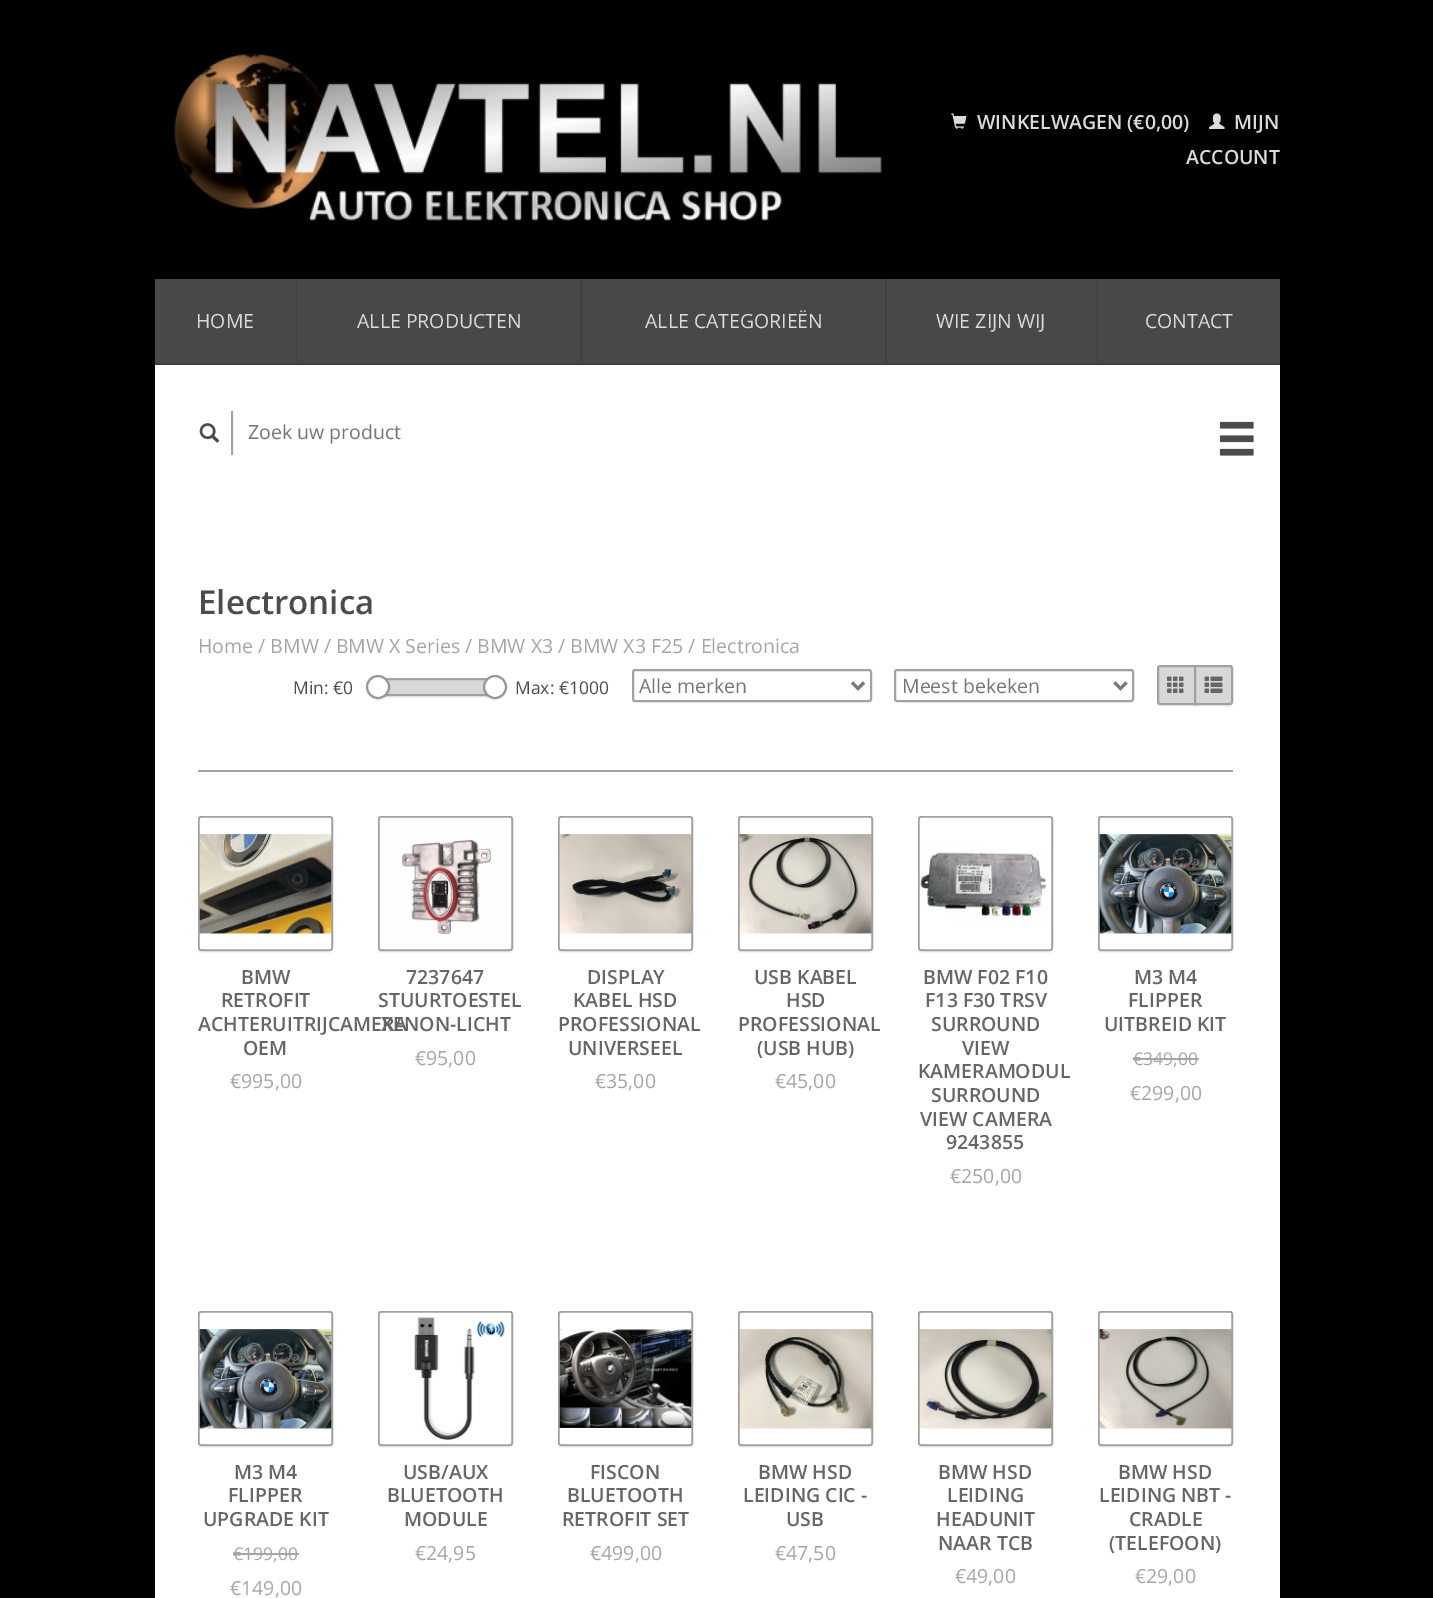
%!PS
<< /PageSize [1433 1598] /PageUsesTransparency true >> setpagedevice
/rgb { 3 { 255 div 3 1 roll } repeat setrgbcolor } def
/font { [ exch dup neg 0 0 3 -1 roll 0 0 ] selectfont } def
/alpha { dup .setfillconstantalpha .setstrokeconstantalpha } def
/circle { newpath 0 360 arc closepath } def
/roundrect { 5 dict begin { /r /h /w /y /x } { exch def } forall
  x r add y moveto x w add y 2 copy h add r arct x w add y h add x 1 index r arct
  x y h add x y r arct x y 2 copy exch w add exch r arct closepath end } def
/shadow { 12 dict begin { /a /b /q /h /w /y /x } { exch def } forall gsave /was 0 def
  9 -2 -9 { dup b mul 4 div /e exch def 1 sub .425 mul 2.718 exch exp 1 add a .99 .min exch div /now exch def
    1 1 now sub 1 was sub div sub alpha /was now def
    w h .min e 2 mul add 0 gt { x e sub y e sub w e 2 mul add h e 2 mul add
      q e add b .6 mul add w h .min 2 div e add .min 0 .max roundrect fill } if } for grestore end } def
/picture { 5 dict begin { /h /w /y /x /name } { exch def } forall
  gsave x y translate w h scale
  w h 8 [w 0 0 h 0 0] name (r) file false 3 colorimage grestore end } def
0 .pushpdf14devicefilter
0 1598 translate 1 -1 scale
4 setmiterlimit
0 0 0 rgb
0 0 1433 1598 rectfill
(img/1.rgb) 173 53 709 168 picture
(img/2.rgb) 951 113 16 16 picture
(img/3.rgb) 1209 113 16 16 picture
255 255 255 rgb
155 366 1125 1232 rectfill
245 245 245 rgb
155 364 moveto 155 366 lineto 1280 366 lineto 1280 281 lineto 1280 364 lineto closepath fill
[
  [155 363 1125 2 63 63 63]
  [155 279 141 84 72 72 72]
  [296 279 1 84 63 63 63]
  [297 279 284 84 72 72 72]
  [581 279 1 84 63 63 63]
  [582 279 303 84 72 72 72]
  [885 279 2 84 63 63 63]
  [887 279 210 84 72 72 72]
  [1097 279 1 84 63 63 63]
  [1098 279 182 84 72 72 72]
] { aload pop rgb rectfill } forall
gsave
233 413 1 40 rectclip
0 0 0 rgb
192 413 42 40 0 1 0.06 shadow
grestore
161 161 161 rgb
231 411 2 44 rectfill
(img/4.rgb) 199 423 21 20 picture
(img/5.rgb) 1219 421 35 35 picture
0.04 alpha
0 0 0 rgb
380 696 moveto 380 698 lineto 497 698 lineto 497 680 lineto 496 680 lineto 496 696 lineto closepath fill
1 alpha
215 215 215 rgb
387 680 99 14 rectfill
161 161 161 rgb
2 setlinewidth
381 679 115 16 rectstroke
0.04 alpha
0 0 0 rgb
366 688 moveto 366 690.5 366.5 693.5 368 695.5 curveto 375 706 391 700 390 688 curveto 389 702.5 367 702.5 366 688 curveto closepath fill
1 alpha
255 255 255 rgb
378 687 11 circle gsave fill grestore
150 150 150 rgb
stroke
0.04 alpha
0 0 0 rgb
483 688 moveto 483 690.5 483.5 693.5 485 695.5 curveto 492 706 508 700 507 688 curveto 506 702.5 484 702.5 483 688 curveto closepath fill
1 alpha
255 255 255 rgb
495 687 11 circle gsave fill grestore
150 150 150 rgb
stroke
161 161 161 rgb
633 670 238 31 2 roundrect stroke
119 119 119 rgb
3 setlinewidth
852 682.5 moveto 858 688.5 lineto 864 682.5 lineto stroke
161 161 161 rgb
2 setlinewidth
895 670 238 31 2 roundrect stroke
119 119 119 rgb
3 setlinewidth
1114.5 682.5 moveto 1120.5 688.5 lineto 1126.5 682.5 lineto stroke
245 245 245 rgb
1157 704 moveto 1157 706 1158 707 1160 707 curveto 1196 707 lineto 1196 666 lineto 1196 705 lineto 1159 705 lineto closepath fill
215 215 215 rgb
1160 666 moveto 1195 666 lineto 1195 704 lineto 1160 704 lineto 1159 704 1158 703 1158 702 curveto 1158 668 lineto 1158 667 1159 666 1160 666 curveto closepath gsave fill grestore
161 161 161 rgb
2 setlinewidth
stroke
(img/6.rgb) 1167 676 17 17 picture
0.04 alpha
0 0 0 rgb
1194 705 moveto 1194 707 lineto 1230 707 lineto 1231.5 707 1233 705.5 1233 704 curveto 1233 702 lineto 1233 703.5 1231.5 705 1230 705 curveto closepath fill
1 alpha
215 215 215 rgb
1195 666 moveto 1230 666 lineto 1231 666 1232 667 1232 668 curveto 1232 702 lineto 1232 703 1231 704 1230 704 curveto 1195 704 lineto closepath gsave fill grestore
161 161 161 rgb
stroke
(img/7.rgb) 1204 676 19 17 picture
198 770 1035 2 rectfill
245 245 245 rgb
198 948 moveto 198 950 lineto 198 952 199 953 201 953 curveto 330 953 lineto 332 953 333 952 333 950 curveto 333 948 lineto 333 950 332 951 330 951 curveto 201 951 lineto 199 951 198 950 198 948 curveto closepath fill
161 161 161 rgb
199 817 133 133 2 roundrect stroke
(img/8.rgb) 199 817 133 133 picture
245 245 245 rgb
378 948 moveto 378 950 lineto 378 952 379 953 381 953 curveto 510 953 lineto 512 953 513 952 513 950 curveto 513 948 lineto 513 950 512 951 510 951 curveto 381 951 lineto 379 951 378 950 378 948 curveto closepath fill
161 161 161 rgb
379 817 133 133 2 roundrect stroke
(img/9.rgb) 379 817 133 133 picture
245 245 245 rgb
558 948 moveto 558 950 lineto 558 952 559 953 561 953 curveto 690 953 lineto 692 953 693 952 693 950 curveto 693 948 lineto 693 950 692 951 690 951 curveto 561 951 lineto 559 951 558 950 558 948 curveto closepath fill
161 161 161 rgb
559 817 133 133 2 roundrect stroke
(img/10.rgb) 559 817 133 133 picture
245 245 245 rgb
738 948 moveto 738 950 lineto 738 952 739 953 741 953 curveto 870 953 lineto 872 953 873 952 873 950 curveto 873 948 lineto 873 950 872 951 870 951 curveto 741 951 lineto 739 951 738 950 738 948 curveto closepath fill
161 161 161 rgb
739 817 133 133 2 roundrect stroke
(img/11.rgb) 739 817 133 133 picture
245 245 245 rgb
918 948 moveto 918 950 lineto 918 952 919 953 921 953 curveto 1050 953 lineto 1052 953 1053 952 1053 950 curveto 1053 948 lineto 1053 950 1052 951 1050 951 curveto 921 951 lineto 919 951 918 950 918 948 curveto closepath fill
161 161 161 rgb
919 817 133 133 2 roundrect stroke
(img/12.rgb) 919 817 133 133 picture
245 245 245 rgb
1098 948 moveto 1098 950 lineto 1098 952 1099 953 1101 953 curveto 1230 953 lineto 1232 953 1233 952 1233 950 curveto 1233 948 lineto 1233 950 1232 951 1230 951 curveto 1101 951 lineto 1099 951 1098 950 1098 948 curveto closepath fill
161 161 161 rgb
1099 817 133 133 2 roundrect stroke
(img/13.rgb) 1099 817 133 133 picture
165 165 165 rgb
1133 1058 66 2 rectfill
245 245 245 rgb
198 1443 moveto 198 1445 lineto 198 1447 199 1448 201 1448 curveto 330 1448 lineto 332 1448 333 1447 333 1445 curveto 333 1443 lineto 333 1445 332 1446 330 1446 curveto 201 1446 lineto 199 1446 198 1445 198 1443 curveto closepath fill
161 161 161 rgb
199 1312 133 133 2 roundrect stroke
(img/14.rgb) 199 1312 133 133 picture
165 165 165 rgb
233 1553 66 2 rectfill
245 245 245 rgb
378 1443 moveto 378 1445 lineto 378 1447 379 1448 381 1448 curveto 510 1448 lineto 512 1448 513 1447 513 1445 curveto 513 1443 lineto 513 1445 512 1446 510 1446 curveto 381 1446 lineto 379 1446 378 1445 378 1443 curveto closepath fill
161 161 161 rgb
379 1312 133 133 2 roundrect stroke
(img/15.rgb) 379 1312 133 133 picture
245 245 245 rgb
558 1443 moveto 558 1445 lineto 558 1447 559 1448 561 1448 curveto 690 1448 lineto 692 1448 693 1447 693 1445 curveto 693 1443 lineto 693 1445 692 1446 690 1446 curveto 561 1446 lineto 559 1446 558 1445 558 1443 curveto closepath fill
161 161 161 rgb
559 1312 133 133 2 roundrect stroke
(img/16.rgb) 559 1312 133 133 picture
245 245 245 rgb
738 1443 moveto 738 1445 lineto 738 1447 739 1448 741 1448 curveto 870 1448 lineto 872 1448 873 1447 873 1445 curveto 873 1443 lineto 873 1445 872 1446 870 1446 curveto 741 1446 lineto 739 1446 738 1445 738 1443 curveto closepath fill
161 161 161 rgb
739 1312 133 133 2 roundrect stroke
(img/17.rgb) 739 1312 133 133 picture
245 245 245 rgb
918 1443 moveto 918 1445 lineto 918 1447 919 1448 921 1448 curveto 1050 1448 lineto 1052 1448 1053 1447 1053 1445 curveto 1053 1443 lineto 1053 1445 1052 1446 1050 1446 curveto 921 1446 lineto 919 1446 918 1445 918 1443 curveto closepath fill
161 161 161 rgb
919 1312 133 133 2 roundrect stroke
(img/18.rgb) 919 1312 133 133 picture
245 245 245 rgb
1098 1443 moveto 1098 1445 lineto 1098 1447 1099 1448 1101 1448 curveto 1230 1448 lineto 1232 1448 1233 1447 1233 1445 curveto 1233 1443 lineto 1233 1445 1232 1446 1230 1446 curveto 1101 1446 lineto 1099 1446 1098 1445 1098 1443 curveto closepath fill
161 161 161 rgb
1099 1312 133 133 2 roundrect stroke
(img/19.rgb) 1099 1312 133 133 picture
/OpenSans-SemiBold 19.5 font
219 219 219 rgb
[
  [(WINKELWAGEN \(€0,00\)) 977 129]
  [(MIJN) 1234 129]
  [(ACCOUNT) 1186 164]
] { aload pop moveto show } forall
/OpenSans-Regular 19.5 font
[
  [(HOME) 196 328]
  [(ALLE PRODUCTEN) 357 328]
  [(ALLE CATEGORIEËN) 645 328]
  [(WIE ZIJN WIJ) 936 328]
  [(CONTACT) 1145 328]
] { aload pop moveto show } forall
117 117 117 rgb
248 439 moveto (Zoek uw product) show
/OpenSans-SemiBold 33 font
76 76 76 rgb
198 614 moveto (Electronica) show
/OpenSans-Regular 19.5 font
165 165 165 rgb
198 653 moveto (Home / BMW / BMW X Series / BMW X3 / BMW X3 F25 / Electronica) show
/OpenSans-Regular 17.5 font
76 76 76 rgb
293 694 moveto (Min: €0) show
515 694 moveto (Max: €1000) show
/OpenSans-Regular 19.5 font
117 117 117 rgb
639 693 moveto (Alle merken) show
902 693 moveto (Meest bekeken) show
/OpenSans-SemiBold 19.5 font
102 102 102 rgb
[
  [(BMW) 241 984]
  [(RETROFIT) 221 1007]
  [(ACHTERUITRIJCAMERA) 198 1031]
  [(OEM) 243 1055]
] { aload pop moveto show } forall
/OpenSans-Regular 19.5 font
165 165 165 rgb
230 1088 moveto (€995,00) show
/OpenSans-SemiBold 19.5 font
102 102 102 rgb
[
  [(7237647) 406 984]
  [(STUURTOESTEL) 378 1007]
  [(XENON-LICHT) 381 1031]
] { aload pop moveto show } forall
/OpenSans-Regular 19.5 font
165 165 165 rgb
415 1065 moveto (€95,00) show
/OpenSans-SemiBold 19.5 font
102 102 102 rgb
[
  [(DISPLAY) 587 984]
  [(KABEL HSD) 573 1007]
  [(PROFESSIONAL) 558 1031]
  [(UNIVERSEEL) 568 1055]
] { aload pop moveto show } forall
/OpenSans-Regular 19.5 font
165 165 165 rgb
595 1088 moveto (€35,00) show
/OpenSans-SemiBold 19.5 font
102 102 102 rgb
[
  [(USB KABEL) 754 984]
  [(HSD) 786 1007]
  [(PROFESSIONAL) 738 1031]
  [(\(USB HUB\)) 757 1055]
] { aload pop moveto show } forall
/OpenSans-Regular 19.5 font
165 165 165 rgb
775 1088 moveto (€45,00) show
/OpenSans-SemiBold 19.5 font
102 102 102 rgb
[
  [(BMW F02 F10) 923 984]
  [(F13 F30 TRSV) 925 1007]
  [(SURROUND) 931 1031]
  [(VIEW) 962 1055]
  [(KAMERAMODUL) 918 1078]
  [(SURROUND) 931 1102]
  [(VIEW CAMERA) 920 1126]
  [(9243855) 946 1149]
] { aload pop moveto show } forall
/OpenSans-Regular 19.5 font
165 165 165 rgb
950 1183 moveto (€250,00) show
/OpenSans-SemiBold 19.5 font
102 102 102 rgb
[
  [(M3 M4) 1134 984]
  [(FLIPPER) 1128 1007]
  [(UITBREID KIT) 1104 1031]
] { aload pop moveto show } forall
/OpenSans-Regular 17.5 font
165 165 165 rgb
1133 1065 moveto (€349,00) show
/OpenSans-Regular 19.5 font
1130 1100 moveto (€299,00) show
/OpenSans-SemiBold 19.5 font
102 102 102 rgb
[
  [(M3 M4) 234 1479]
  [(FLIPPER) 228 1502]
  [(UPGRADE KIT) 203 1526]
] { aload pop moveto show } forall
/OpenSans-Regular 17.5 font
165 165 165 rgb
233 1560 moveto (€199,00) show
/OpenSans-Regular 19.5 font
230 1595 moveto (€149,00) show
/OpenSans-SemiBold 19.5 font
102 102 102 rgb
[
  [(USB/AUX) 403 1479]
  [(BLUETOOTH) 387 1502]
  [(MODULE) 404 1526]
] { aload pop moveto show } forall
/OpenSans-Regular 19.5 font
165 165 165 rgb
415 1560 moveto (€24,95) show
/OpenSans-SemiBold 19.5 font
102 102 102 rgb
[
  [(FISCON) 590 1479]
  [(BLUETOOTH) 567 1502]
  [(RETROFIT SET) 562 1526]
] { aload pop moveto show } forall
/OpenSans-Regular 19.5 font
165 165 165 rgb
590 1560 moveto (€499,00) show
/OpenSans-SemiBold 19.5 font
102 102 102 rgb
[
  [(BMW HSD) 758 1479]
  [(LEIDING CIC -) 743 1502]
  [(USB) 786 1526]
] { aload pop moveto show } forall
/OpenSans-Regular 19.5 font
165 165 165 rgb
775 1560 moveto (€47,50) show
/OpenSans-SemiBold 19.5 font
102 102 102 rgb
[
  [(BMW HSD) 938 1479]
  [(LEIDING) 947 1502]
  [(HEADUNIT) 936 1526]
  [(NAAR TCB) 938 1550]
] { aload pop moveto show } forall
/OpenSans-Regular 19.5 font
165 165 165 rgb
955 1583 moveto (€49,00) show
/OpenSans-SemiBold 19.5 font
102 102 102 rgb
[
  [(BMW HSD) 1118 1479]
  [(LEIDING NBT -) 1099 1502]
  [(CRADLE) 1129 1526]
  [(\(TELEFOON\)) 1109 1550]
] { aload pop moveto show } forall
/OpenSans-Regular 19.5 font
165 165 165 rgb
1135 1583 moveto (€29,00) show
.poppdf14devicefilter showpage
